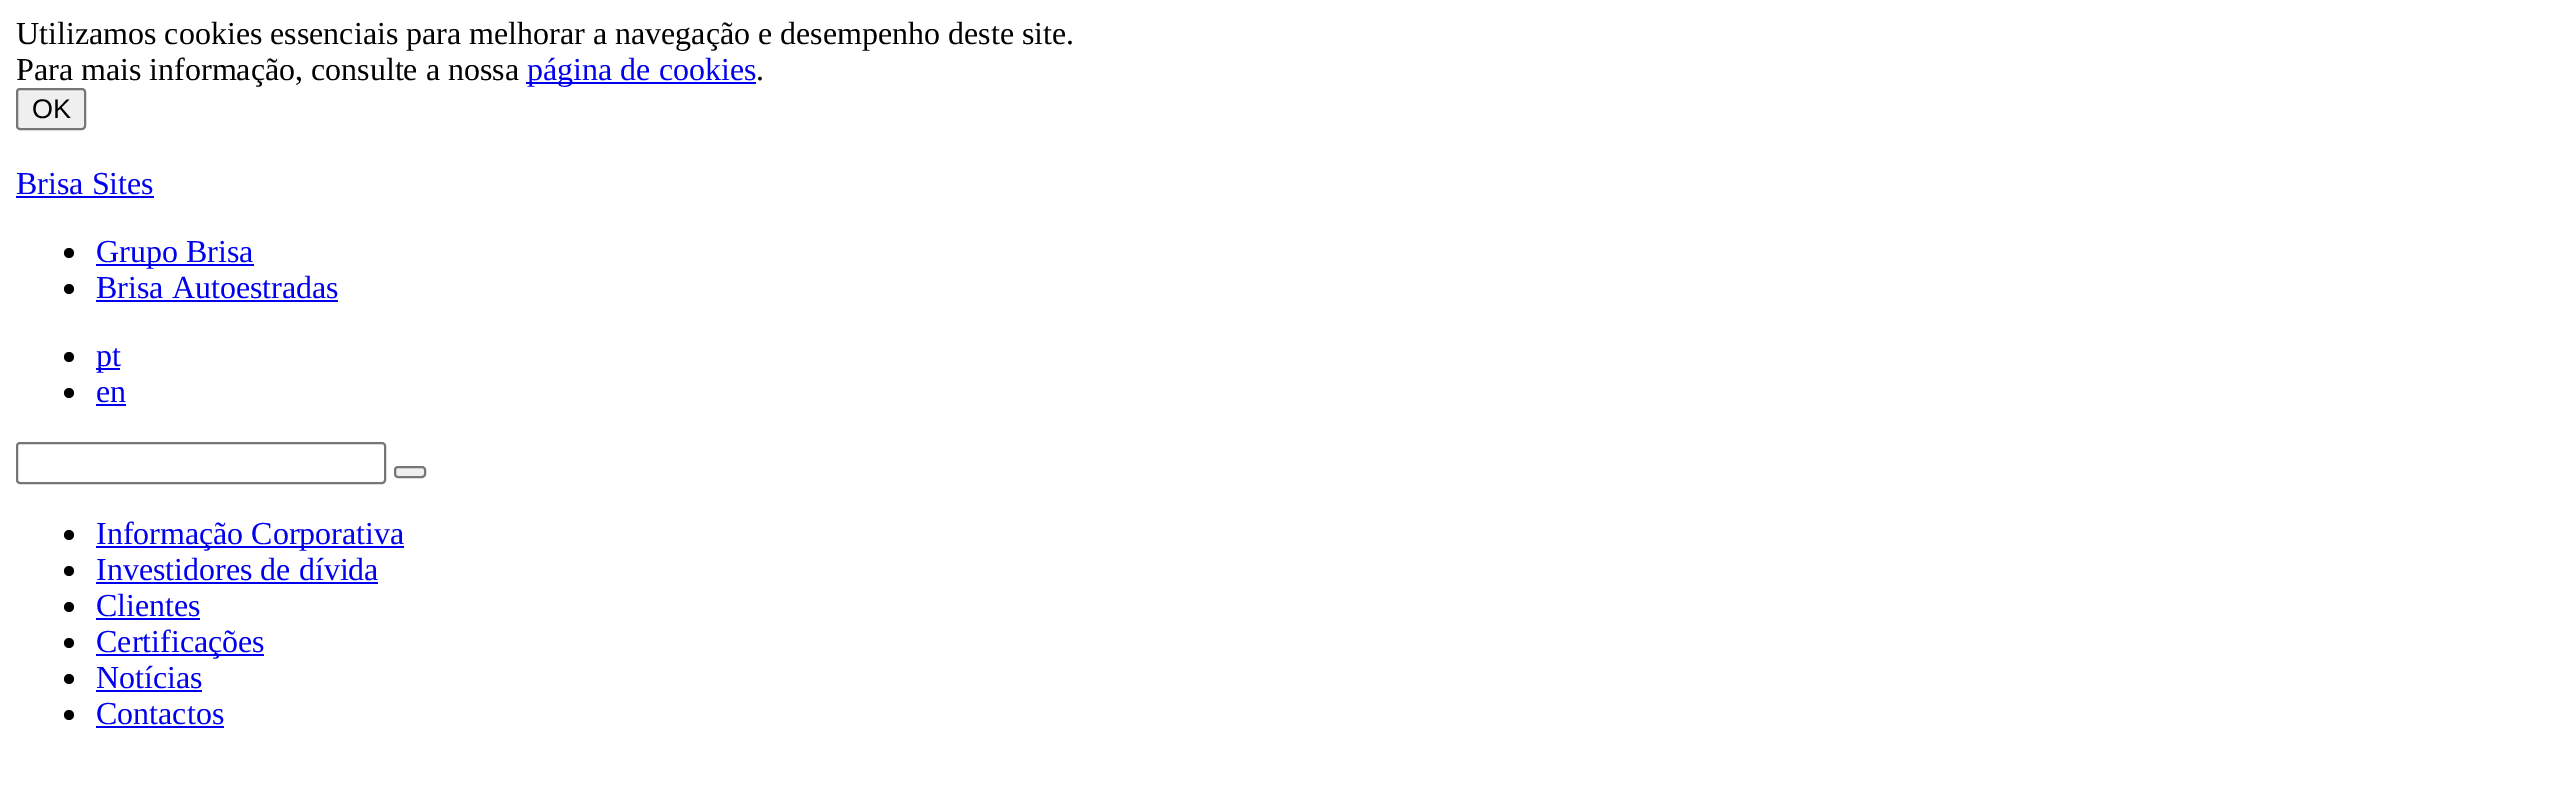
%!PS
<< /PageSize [2556 805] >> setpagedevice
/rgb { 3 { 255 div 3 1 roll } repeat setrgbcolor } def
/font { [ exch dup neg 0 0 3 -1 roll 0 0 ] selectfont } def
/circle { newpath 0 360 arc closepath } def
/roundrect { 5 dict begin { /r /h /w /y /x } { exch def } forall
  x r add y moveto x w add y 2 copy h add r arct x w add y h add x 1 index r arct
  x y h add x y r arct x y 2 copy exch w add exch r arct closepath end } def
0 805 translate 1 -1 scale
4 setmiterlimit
255 255 255 rgb
0 0 2556 805 rectfill
0 0 238 rgb
526 82 230 2 rectfill
239 239 239 rgb
17 89 68 40 3 roundrect gsave fill grestore
118 118 118 rgb
2 setlinewidth
stroke
0 0 238 rgb
16 196 138 2 rectfill
0 0 0 rgb
69 253 5 circle fill
0 0 238 rgb
96 264 158 2 rectfill
0 0 0 rgb
69 289 5 circle fill
0 0 238 rgb
96 300 242 2 rectfill
0 0 0 rgb
69 357 5 circle fill
0 0 238 rgb
96 368 24 2 rectfill
0 0 0 rgb
69 393 5 circle fill
0 0 238 rgb
96 404 30 2 rectfill
118 118 118 rgb
17 443 368 40 3 roundrect stroke
239 239 239 rgb
395 467 30 10 3 roundrect gsave fill grestore
118 118 118 rgb
stroke
0 0 0 rgb
69 535 5 circle fill
0 0 238 rgb
96 546 308 2 rectfill
0 0 0 rgb
69 571 5 circle fill
0 0 238 rgb
96 582 282 2 rectfill
0 0 0 rgb
69 607 5 circle fill
0 0 238 rgb
96 618 104 2 rectfill
0 0 0 rgb
69 643 5 circle fill
0 0 238 rgb
96 654 168 2 rectfill
0 0 0 rgb
69 679 5 circle fill
0 0 238 rgb
96 690 106 2 rectfill
0 0 0 rgb
69 715 5 circle fill
0 0 238 rgb
96 726 128 2 rectfill
/LiberationSerif-Regular 32 font
0 0 0 rgb
16 44 moveto (Utilizamos cookies essenciais para melhorar a navegação e desempenho deste site.) show
16 80 moveto (Para mais informação, consulte a nossa) show
0 0 238 rgb
527 80 moveto (página de cookies) show
0 0 0 rgb
756 80 moveto (.) show
/LiberationSans-Regular 27 font
32 118 moveto (OK) show
/LiberationSerif-Regular 32 font
0 0 238 rgb
[
  [(Brisa Sites) 16 194]
  [(Grupo Brisa) 96 262]
  [(Brisa Autoestradas) 96 298]
  [(pt) 96 366]
  [(en) 96 402]
  [(Informação Corporativa) 96 544]
  [(Investidores de dívida) 96 580]
  [(Clientes) 96 616]
  [(Certificações) 96 652]
  [(Notícias) 96 688]
  [(Contactos) 96 724]
] { aload pop moveto show } forall
showpage
